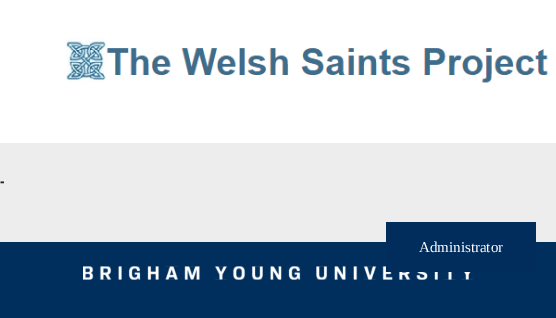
%!PS
<< /PageSize [556 318] >> setpagedevice
/rgb { 3 { 255 div 3 1 roll } repeat setrgbcolor } def
/font { [ exch dup neg 0 0 3 -1 roll 0 0 ] selectfont } def
/picture { 5 dict begin { /h /w /y /x /name } { exch def } forall
  gsave x y translate w h scale
  w h 8 [w 0 0 h 0 0] name (r) file false 3 colorimage grestore end } def
0 318 translate 1 -1 scale
4 setmiterlimit
255 255 255 rgb
0 0 556 318 rectfill
(img/1.rgb) 66 38 482 45 picture
237 237 237 rgb
0 143 556 99 rectfill
0 46 93 rgb
0 242 556 76 rectfill
(img/2.rgb) 83 266 390 14 picture
1 45 93 rgb
386 222 150 50 rectfill
/LiberationSans-Bold 14 font
33 37 41 rgb
0 186 moveto (-) show
/LiberationSerif-Regular 15 font
255 255 255 rgb
419 252 moveto (Administrator) show
showpage
